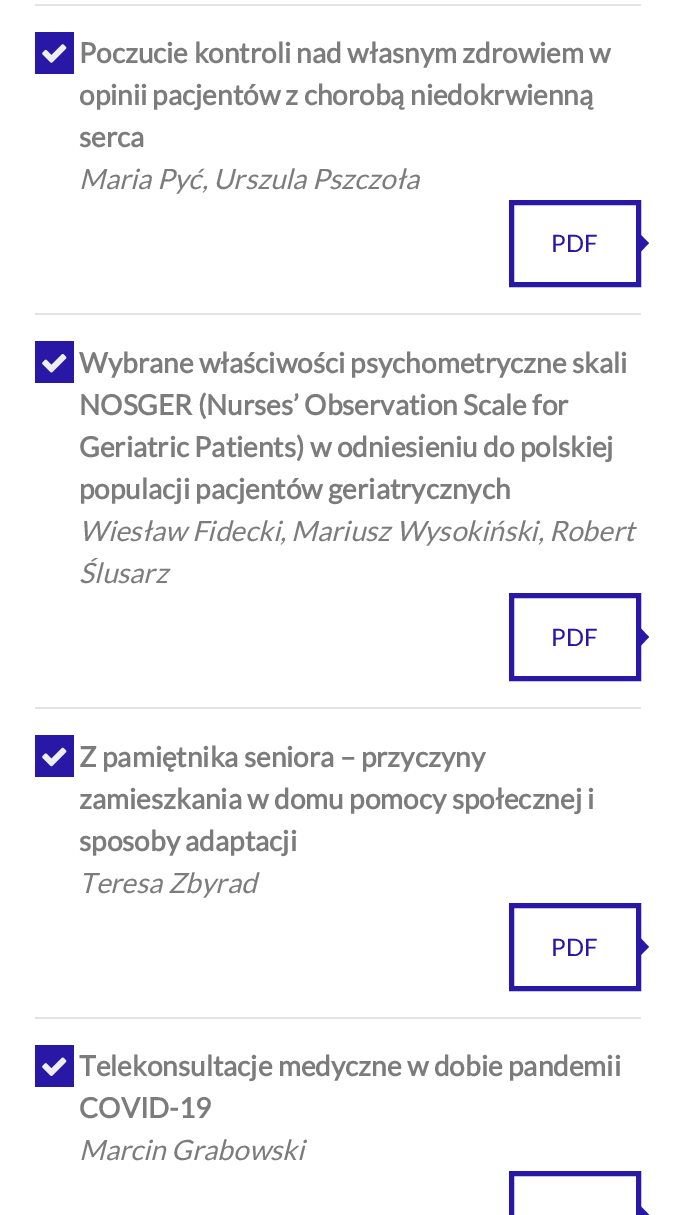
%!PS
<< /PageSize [675 1215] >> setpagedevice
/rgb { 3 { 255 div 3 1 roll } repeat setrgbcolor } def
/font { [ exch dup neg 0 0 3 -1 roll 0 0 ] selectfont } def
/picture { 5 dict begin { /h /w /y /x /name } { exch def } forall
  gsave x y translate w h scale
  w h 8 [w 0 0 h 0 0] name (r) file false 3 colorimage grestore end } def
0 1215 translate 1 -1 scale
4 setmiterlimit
255 255 255 rgb
0 0 675 1215 rectfill
227 227 227 rgb
35 4 606 2 rectfill
41 24 165 rgb
35 32 39 42 rectfill
(img/1.rgb) 42 44 25 19 picture
5 setlinewidth
511.5 202.5 127 82 rectstroke
640.5 252 moveto 640.5 234.5 lineto 649 243 lineto closepath fill
227 227 227 rgb
35 313 606 2 rectfill
41 24 165 rgb
35 341 39 42 rectfill
(img/2.rgb) 42 354 25 19 picture
511.5 595.5 127 83 rectstroke
640.5 646 moveto 640.5 628 lineto 649 637 lineto closepath fill
227 227 227 rgb
35 707 606 2 rectfill
41 24 165 rgb
35 735 39 42 rectfill
(img/3.rgb) 42 747 25 20 picture
511.5 905.5 127 83 rectstroke
640.5 955.5 moveto 640.5 938 lineto 649 947 lineto closepath fill
227 227 227 rgb
35 1017 606 2 rectfill
41 24 165 rgb
35 1045 39 42 rectfill
(img/4.rgb) 42 1057 25 19 picture
511.5 1173.5 127 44 rectstroke
640.5 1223 moveto 640.5 1206 lineto 649 1214.5 lineto closepath fill
/Lato-Bold 28 font
124 124 124 rgb
[
  [(Poczucie kontroli nad własnym zdrowiem w) 79 63]
  [(opinii pacjentów z chorobą niedokrwienną) 79 105]
  [(serca) 79 147]
] { aload pop moveto show } forall
/Lato-Italic 28 font
79 189 moveto (Maria Pyć, Urszula Pszczoła) show
/Lato-Regular 24 font
41 24 165 rgb
551 252 moveto (PDF) show
/Lato-Bold 28 font
124 124 124 rgb
[
  [(Wybrane właściwości psychometryczne skali) 79 373]
  [(NOSGER \(Nurses’ Observation Scale for) 79 415]
  [(Geriatric Patients\) w odniesieniu do polskiej) 79 457]
  [(populacji pacjentów geriatrycznych) 79 499]
] { aload pop moveto show } forall
/Lato-Italic 28 font
79 541 moveto (Wiesław Fidecki, Mariusz Wysokiński, Robert) show
79 583 moveto (Ślusarz) show
/Lato-Regular 24 font
41 24 165 rgb
551 646 moveto (PDF) show
/Lato-Bold 28 font
124 124 124 rgb
[
  [(Z pamiętnika seniora – przyczyny) 79 767]
  [(zamieszkania w domu pomocy społecznej i) 79 809]
  [(sposoby adaptacji) 79 851]
] { aload pop moveto show } forall
/Lato-Italic 28 font
79 893 moveto (Teresa Zbyrad) show
/Lato-Regular 24 font
41 24 165 rgb
551 956 moveto (PDF) show
/Lato-Bold 28 font
124 124 124 rgb
79 1076 moveto (Telekonsultacje medyczne w dobie pandemii) show
79 1118 moveto (COVID-19) show
/Lato-Italic 28 font
79 1160 moveto (Marcin Grabowski) show
showpage
